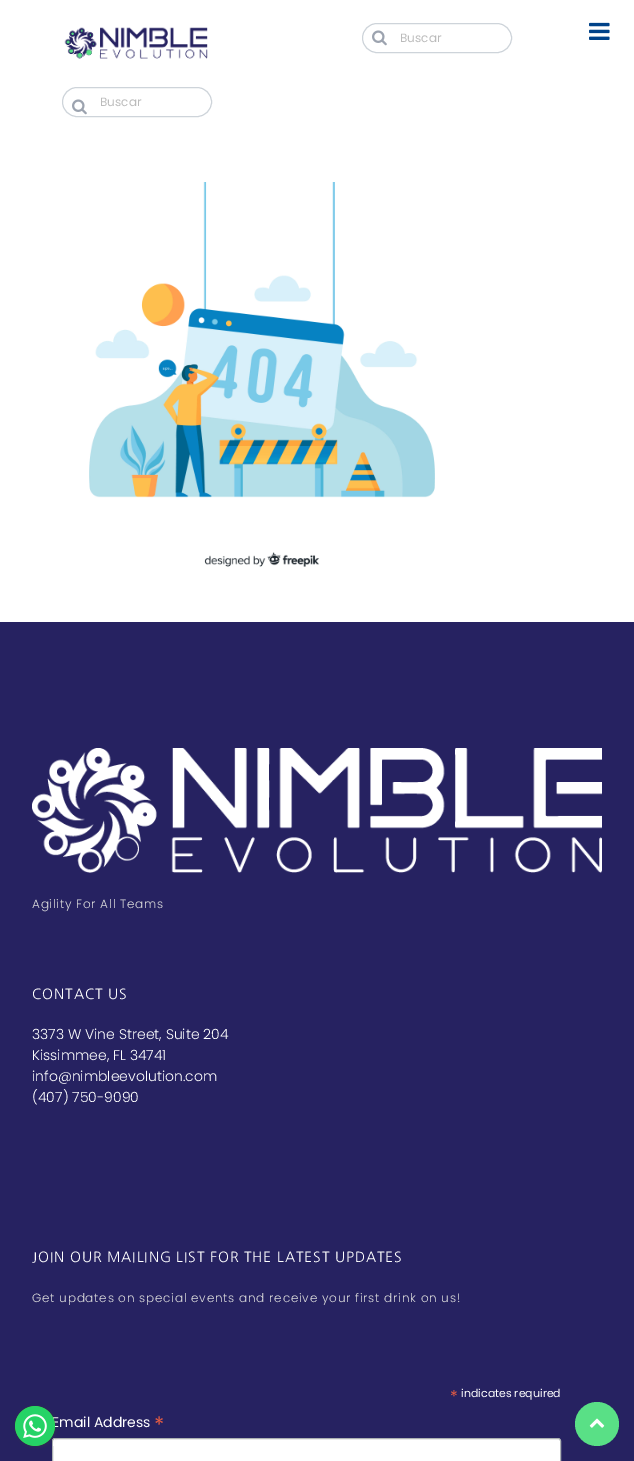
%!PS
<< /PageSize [634 1461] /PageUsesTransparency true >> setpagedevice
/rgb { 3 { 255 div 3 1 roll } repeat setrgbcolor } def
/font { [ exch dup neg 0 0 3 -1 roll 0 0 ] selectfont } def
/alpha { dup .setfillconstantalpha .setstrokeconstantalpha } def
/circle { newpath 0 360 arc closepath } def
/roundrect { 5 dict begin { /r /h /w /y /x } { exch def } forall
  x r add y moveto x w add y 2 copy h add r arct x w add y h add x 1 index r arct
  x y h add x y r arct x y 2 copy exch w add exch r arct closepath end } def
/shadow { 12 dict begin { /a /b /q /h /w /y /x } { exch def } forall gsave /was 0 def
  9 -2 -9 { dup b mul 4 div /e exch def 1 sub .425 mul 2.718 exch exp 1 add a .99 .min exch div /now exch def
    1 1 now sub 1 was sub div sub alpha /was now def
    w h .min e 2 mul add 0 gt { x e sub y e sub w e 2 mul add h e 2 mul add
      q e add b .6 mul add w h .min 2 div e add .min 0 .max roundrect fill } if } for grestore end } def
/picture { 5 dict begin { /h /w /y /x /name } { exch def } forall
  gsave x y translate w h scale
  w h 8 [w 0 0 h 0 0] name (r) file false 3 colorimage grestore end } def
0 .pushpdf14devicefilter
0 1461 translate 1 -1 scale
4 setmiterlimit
255 255 255 rgb
0 0 634 1461 rectfill
(img/1.rgb) 64 27 144 32 picture
206 212 218 rgb
362.5 23.5 149 29 14.5 roundrect stroke
(img/2.rgb) 372 30 15 16 picture
(img/3.rgb) 589 22 21 18 picture
62.5 87.5 149 29 14.5 roundrect stroke
(img/2.rgb) 72 99 15 16 picture
(img/4.rgb) 89 182 346 385 picture
38 34 97 rgb
0 622 634 839 rectfill
(img/5.rgb) 32 748 570 125 picture
255 255 255 rgb
52.5 1438.5 508 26 2.5 roundrect gsave fill grestore
171 176 178 rgb
stroke
60 60 60 rgb
16 1407 40 40 20 2 0.4 shadow
89 224 134 rgb
597 1424 22 circle fill
(img/7.rgb) 589 1418 16 10 picture
/Poppins-Regular 12 font
187 187 187 rgb
400 42 moveto (Buscar) show
100 106 moveto (Buscar) show
/Poppins-Light 12 font
218 218 218 rgb
32 908 moveto 0.75 0 (Agility For All Teams) ashow
/NanumGothic-Regular 14 font
255 255 255 rgb
32 999 moveto 0.85 0 (CONTACT US) ashow
/Poppins-Light 14 font
[
  [(3373 W Vine Street, Suite 204) 32 1039]
  [(Kissimmee, FL 34741) 32 1060]
  [(info@nimbleevolution.com) 32 1081]
  [(\(407\) 750-9090) 32 1102]
] { aload pop moveto show } forall
/NanumGothic-Regular 14 font
32 1262 moveto 0.85 0 (JOIN OUR MAILING LIST FOR THE LATEST UPDATES) ashow
/Poppins-Light 12 font
218 218 218 rgb
32 1302 moveto 0.75 0 (Get updates on special events and receive your first drink on us!) ashow
/Poppins-Regular 16 font
232 92 65 rgb
450 1402 moveto (*) show
/Poppins-Regular 11 font
255 255 255 rgb
461 1397 moveto (indicates required) show
/Poppins-Regular 14 font
52 1427 moveto (Email Address) show
/Poppins-Regular 21 font
232 92 65 rgb
154 1432 moveto (*) show
65 207 46 rgb
35 1426 20 circle fill
(img/6.rgb) 15 1406 40 40 picture
.poppdf14devicefilter showpage
